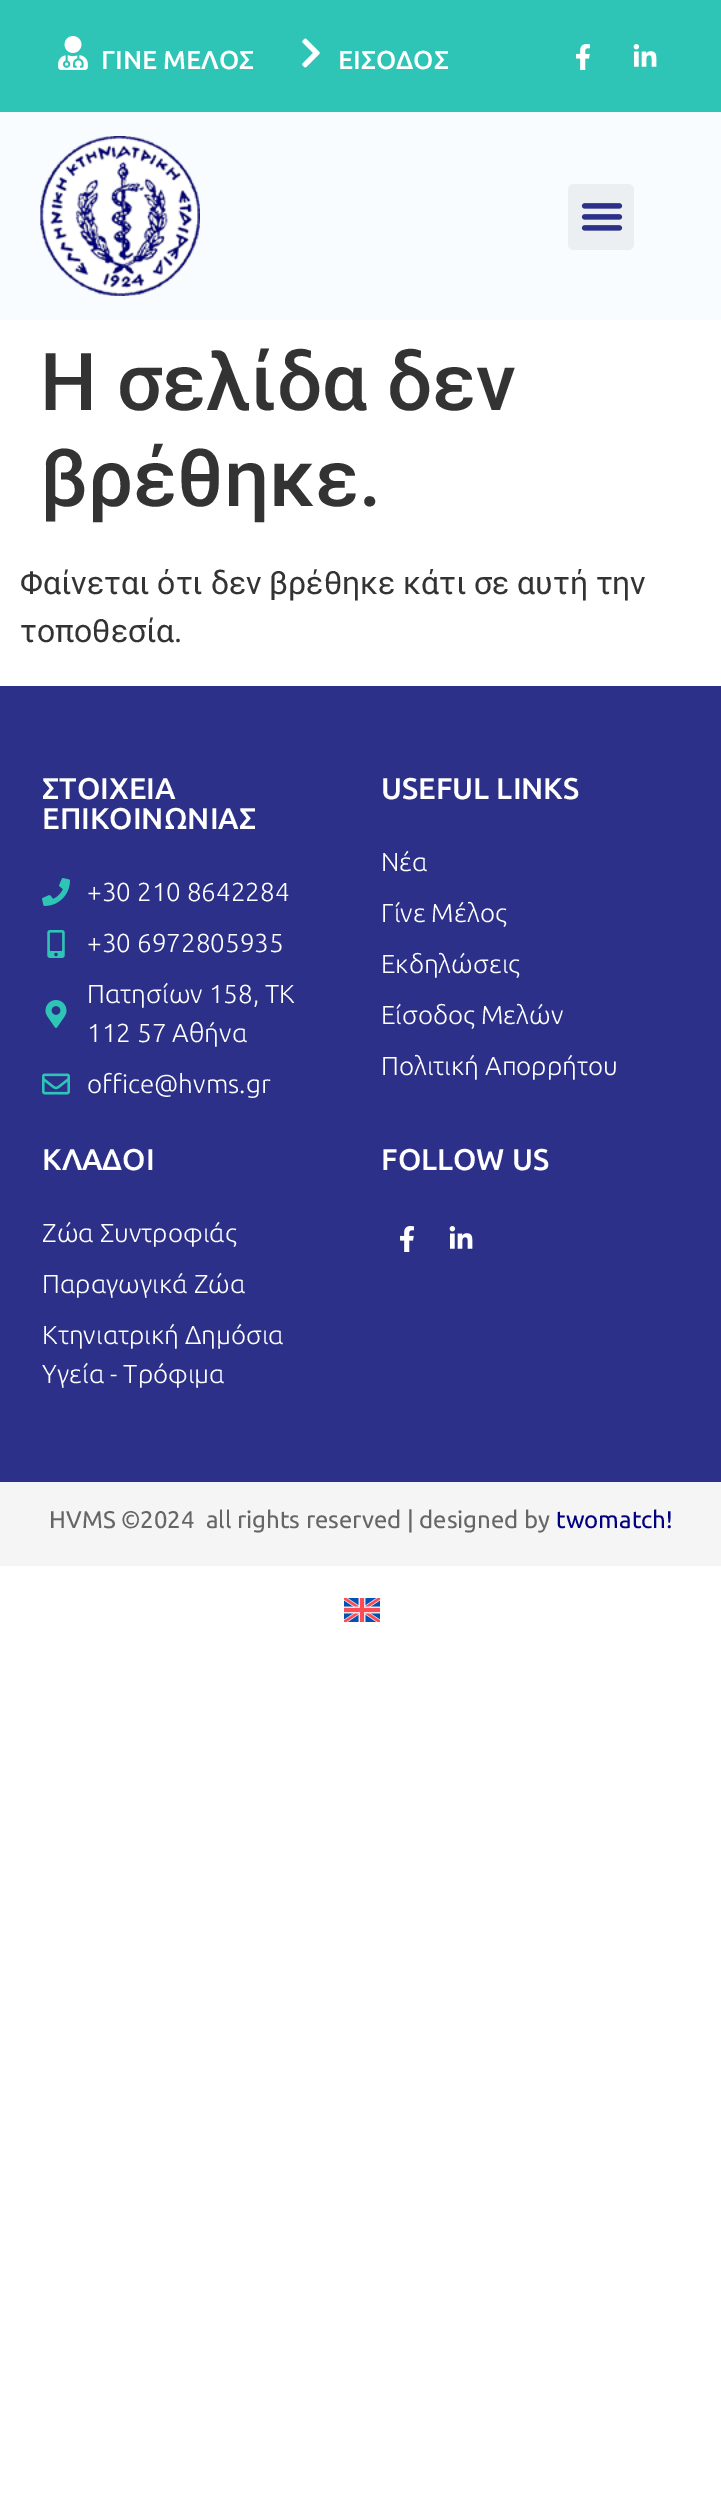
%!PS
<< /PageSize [721 2513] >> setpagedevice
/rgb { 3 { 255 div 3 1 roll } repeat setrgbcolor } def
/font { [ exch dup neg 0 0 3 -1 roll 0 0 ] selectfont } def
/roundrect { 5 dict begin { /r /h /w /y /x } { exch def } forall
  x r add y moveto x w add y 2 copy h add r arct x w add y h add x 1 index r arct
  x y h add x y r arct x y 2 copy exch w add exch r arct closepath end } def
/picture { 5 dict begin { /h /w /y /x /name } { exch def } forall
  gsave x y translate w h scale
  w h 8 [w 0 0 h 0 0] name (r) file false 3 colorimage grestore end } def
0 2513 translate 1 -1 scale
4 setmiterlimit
255 255 255 rgb
0 0 721 2513 rectfill
46 196 182 rgb
0 0 721 112 rectfill
(img/1.rgb) 58 36 30 34 picture
(img/2.rgb) 302 38 18 30 picture
(img/3.rgb) 576 44 14 26 picture
(img/4.rgb) 633 44 24 23 picture
248 252 255 rgb
0 112 721 208 rectfill
(img/5.rgb) 40 136 160 160 picture
236 239 242 rgb
568 184 66 66 6 roundrect fill
(img/6.rgb) 581 203 42 28 picture
44 48 137 rgb
0 686 721 796 rectfill
(img/7.rgb) 42 878 28 28 picture
(img/8.rgb) 47 930 18 28 picture
(img/9.rgb) 45 1000 22 28 picture
(img/10.rgb) 42 1073 28 22 picture
(img/11.rgb) 400 1226 14 26 picture
(img/12.rgb) 449 1226 24 23 picture
245 245 245 rgb
0 1482 721 84 rectfill
(img/13.rgb) 344 1598 36 24 picture
/Ubuntu-Medium 26 font
255 255 255 rgb
101 69 moveto (ΓΙΝΕ ΜΕΛΟΣ) show
338 69 moveto (ΕΙΣΟΔΟΣ) show
/Roboto-Medium 80 font
51 51 51 rgb
40 410 moveto (Η σελίδα δεν) show
40 506 moveto (βρέθηκε.) show
/Roboto-Regular 32 font
20 594 moveto (Φαίνεται ότι δεν βρέθηκε κάτι σε αυτή την) show
20 642 moveto (τοποθεσία.) show
/Ubuntu-Medium 30 font
255 255 255 rgb
42 799 moveto (ΣΤΟΙΧΕΙΑ) show
42 829 moveto (ΕΠΙΚΟΙΝΩΝΙΑΣ) show
/Ubuntu-Light 26 font
[
  [(+30 210 8642284) 87 901]
  [(+30 6972805935) 87 952]
  [(Πατησίων 158, TK) 87 1003]
  [(112 57 Αθήνα) 87 1042]
  [(office@hvms.gr) 87 1093]
] { aload pop moveto show } forall
/Ubuntu-Medium 30 font
381 799 moveto (USEFUL LINKS) show
/Ubuntu-Light 26 font
[
  [(Νέα) 381 871]
  [(Γίνε Μέλος) 381 922]
  [(Εκδηλώσεις) 381 973]
  [(Είσοδος Μελών) 381 1024]
  [(Πολιτική Απορρήτου) 381 1075]
] { aload pop moveto show } forall
/Ubuntu-Medium 30 font
42 1170 moveto (ΚΛΑΔΟΙ) show
/Ubuntu-Light 26 font
[
  [(Ζώα Συντροφιάς) 42 1242]
  [(Παραγωγικά Ζώα) 42 1293]
  [(Κτηνιατρική Δημόσια) 42 1344]
  [(Υγεία - Τρόφιμα) 42 1383]
] { aload pop moveto show } forall
/Ubuntu-Medium 30 font
381 1170 moveto (FOLLOW US) show
/Ubuntu-Regular 24 font
102 102 102 rgb
49 1528 moveto (HVMS ©2024  all rights reserved | designed by) show
0 0 128 rgb
556 1528 moveto (twomatch!) show
showpage
